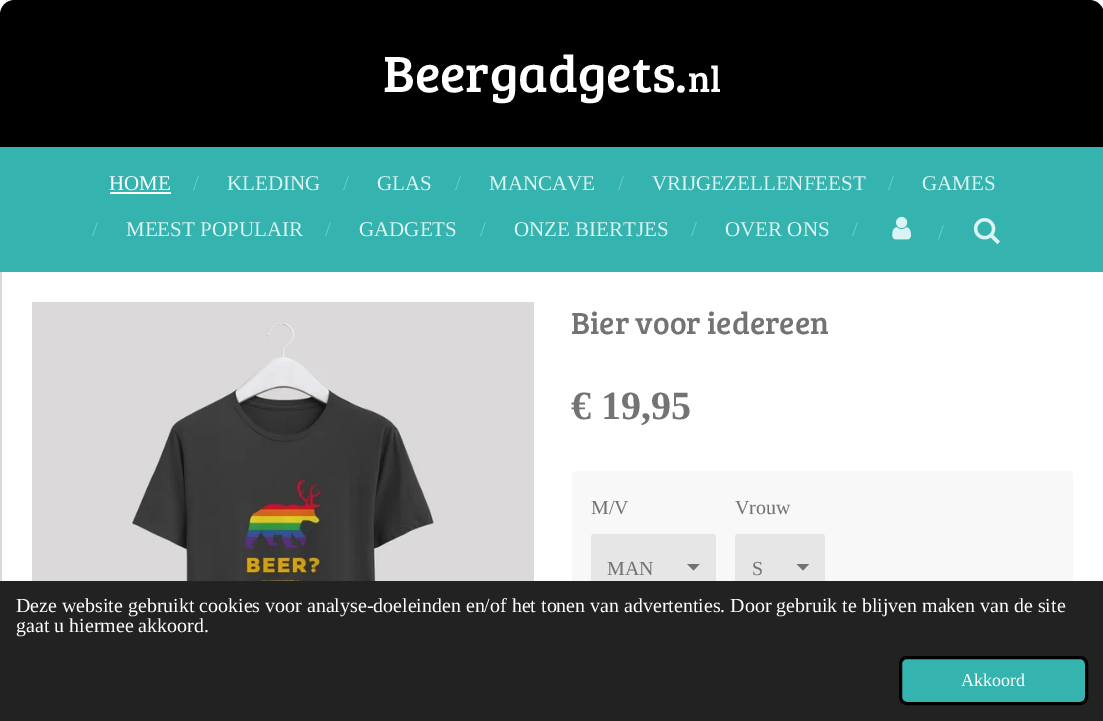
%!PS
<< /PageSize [1103 721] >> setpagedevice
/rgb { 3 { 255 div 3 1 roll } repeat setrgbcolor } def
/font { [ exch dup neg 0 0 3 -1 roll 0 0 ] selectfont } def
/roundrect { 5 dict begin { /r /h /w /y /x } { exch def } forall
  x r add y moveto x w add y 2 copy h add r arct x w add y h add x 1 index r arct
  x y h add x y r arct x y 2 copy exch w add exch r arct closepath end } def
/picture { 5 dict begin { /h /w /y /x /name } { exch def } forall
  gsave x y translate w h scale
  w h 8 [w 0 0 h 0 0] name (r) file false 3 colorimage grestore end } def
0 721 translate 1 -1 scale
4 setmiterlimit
255 255 255 rgb
0 0 1103 721 rectfill
0 0 0 rgb
15 0 moveto 1089 0 lineto 1097.5 0 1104 6.5 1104 15 curveto 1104 147 lineto 0 147 lineto 0 15 lineto 0 6.5 6.5 0 15 0 curveto closepath fill
53 179 175 rgb
0 147 1103 125 rectfill
255 255 255 rgb
110 192 61 2 rectfill
(img/1.rgb) 892 216 19 24 picture
(img/2.rgb) 973 218 27 27 picture
217 217 217 rgb
0 272 2 309 rectfill
(img/3.rgb) 32 302 502 279 picture
248 248 248 rgb
572 471 501 152 4 roundrect fill
230 230 230 rgb
591 534 125 69 3 roundrect fill
115 115 115 rgb
693.5 570.5 moveto 687 564 lineto 699.5 564 lineto closepath fill
230 230 230 rgb
735 534 90 69 3 roundrect fill
115 115 115 rgb
803 570.5 moveto 796.5 564 lineto 809 564 lineto closepath fill
34 34 34 rgb
0 581 1103 140 rectfill
53 179 175 rgb
900.5 657.5 186 46 6.5 roundrect gsave fill grestore
0 0 0 rgb
3 setlinewidth
stroke
/BreeSerif-Regular 52.5 font
255 255 255 rgb
383 92 moveto (Beergadgets.) show
/BreeSerif-Regular 37 font
688 92 moveto (nl) show
/LiberationSerif-Regular 21 font
109 190 moveto (HOME) show
100 209 205 rgb
193 190 moveto (/) show
218 244 243 rgb
227 190 moveto (KLEDING) show
100 209 205 rgb
343 190 moveto (/) show
218 244 243 rgb
377 190 moveto (GLAS) show
100 209 205 rgb
455 190 moveto (/) show
218 244 243 rgb
489 190 moveto (MANCAVE) show
100 209 205 rgb
618 190 moveto (/) show
218 244 243 rgb
652 190 moveto (VRIJGEZELLENFEEST) show
100 209 205 rgb
888 190 moveto (/) show
218 244 243 rgb
922 190 moveto (GAMES) show
100 209 205 rgb
92 236 moveto (/) show
218 244 243 rgb
126 236 moveto (MEEST POPULAIR) show
100 209 205 rgb
325 236 moveto (/) show
218 244 243 rgb
359 236 moveto (GADGETS) show
100 209 205 rgb
480 236 moveto (/) show
218 244 243 rgb
514 236 moveto (ONZE BIERTJES) show
100 209 205 rgb
691 236 moveto (/) show
218 244 243 rgb
725 236 moveto (OVER ONS) show
100 209 205 rgb
852 236 moveto (/) show
938 239 moveto (/) show
/BreeSerif-Regular 31.5 font
115 115 115 rgb
571 334 moveto (Bier voor iedereen) show
/LiberationSerif-Bold 40 font
571 419 moveto (€ 19,95) show
/LiberationSerif-Regular 19.95 font
[
  [(M/V) 591 514]
  [(MAN) 607 575]
  [(Vrouw) 735 514]
  [(S) 752 575]
] { aload pop moveto show } forall
255 255 255 rgb
16 612 moveto (Deze website gebruikt cookies voor analyse-doeleinden en/of het tonen van advertenties. Door gebruik te blijven maken van de site) show
16 632 moveto (gaat u hiermee akkoord.) show
/LiberationSerif-Regular 18 font
961 686 moveto (Akkoord) show
showpage
